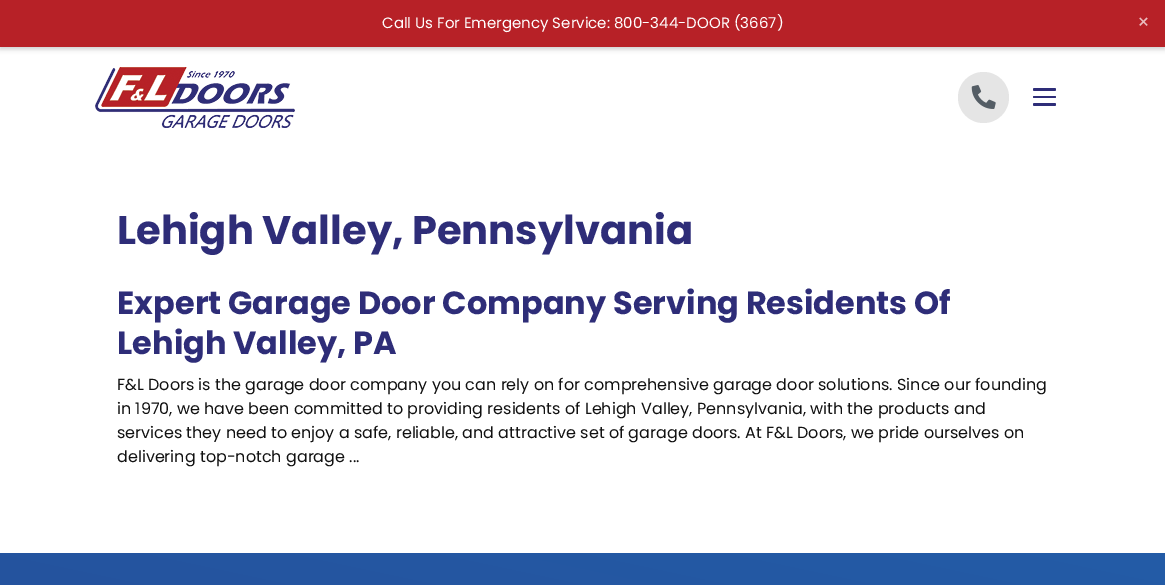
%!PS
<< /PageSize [1165 585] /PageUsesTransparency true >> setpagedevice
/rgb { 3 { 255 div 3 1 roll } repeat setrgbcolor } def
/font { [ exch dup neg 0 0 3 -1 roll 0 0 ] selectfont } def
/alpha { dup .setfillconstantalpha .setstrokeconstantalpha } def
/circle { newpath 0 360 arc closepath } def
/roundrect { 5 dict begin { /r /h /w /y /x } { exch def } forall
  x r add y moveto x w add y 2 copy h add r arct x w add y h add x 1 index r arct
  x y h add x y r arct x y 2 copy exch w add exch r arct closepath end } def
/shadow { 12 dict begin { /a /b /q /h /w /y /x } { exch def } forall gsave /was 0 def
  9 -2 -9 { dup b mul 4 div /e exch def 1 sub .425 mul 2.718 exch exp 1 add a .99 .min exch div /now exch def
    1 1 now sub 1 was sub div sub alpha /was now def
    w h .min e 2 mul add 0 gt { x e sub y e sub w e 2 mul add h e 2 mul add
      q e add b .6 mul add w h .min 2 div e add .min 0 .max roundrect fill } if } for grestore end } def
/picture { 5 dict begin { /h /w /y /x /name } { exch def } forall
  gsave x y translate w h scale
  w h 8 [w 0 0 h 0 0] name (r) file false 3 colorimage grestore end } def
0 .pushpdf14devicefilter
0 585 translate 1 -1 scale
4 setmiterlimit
255 255 255 rgb
0 0 1165 585 rectfill
0 0 0 rgb
0 2 1165 47 0 2.5 0.2 shadow
183 33 39 rgb
0 0 1165 47 rectfill
(img/1.rgb) 95 67 200 61 picture
229 229 229 rgb
983.5 97.5 25.5 circle fill
(img/2.rgb) 971 85 25 24 picture
46 45 120 rgb
1033 88 23 3 1.5 roundrect fill
1033 96 23 2 1 roundrect fill
1033 103 23 3 1.5 roundrect fill
gsave 0 553 moveto 1165 553 lineto 1165 585 lineto 0 585 lineto closepath clip newpath
<< /ShadingType 2 /ColorSpace /DeviceRGB /Coords [426 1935 895 -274] /Extend [true true] /Function << /FunctionType 2 /Domain [0 1] /C0 [0.18 0.176 0.471] /C1 [0.118 0.451 0.745] /N 1 >> >> shfill grestore
/Poppins-Regular 15 font
255 255 255 rgb
382 28 moveto (Call Us For Emergency Service: 800-344-DOOR \(3667\)) show
/Poppins-Regular 20 font
233 188 190 rgb
1137 29 moveto (×) show
/Poppins-Bold 40 font
46 45 120 rgb
117 244 moveto (Lehigh Valley, Pennsylvania) show
/Poppins-Bold 32 font
117 314 moveto (Expert Garage Door Company Serving Residents Of) show
117 354 moveto (Lehigh Valley, PA) show
/Poppins-Regular 16 font
17 17 17 rgb
[
  [(F&L Doors is the garage door company you can rely on for comprehensive garage door solutions. Since our founding) 117 390]
  [(in 1970, we have been committed to providing residents of Lehigh Valley, Pennsylvania, with the products and) 117 414]
  [(services they need to enjoy a safe, reliable, and attractive set of garage doors. At F&L Doors, we pride ourselves on) 117 438]
  [(delivering top-notch garage ...) 117 462]
] { aload pop moveto show } forall
.poppdf14devicefilter showpage
